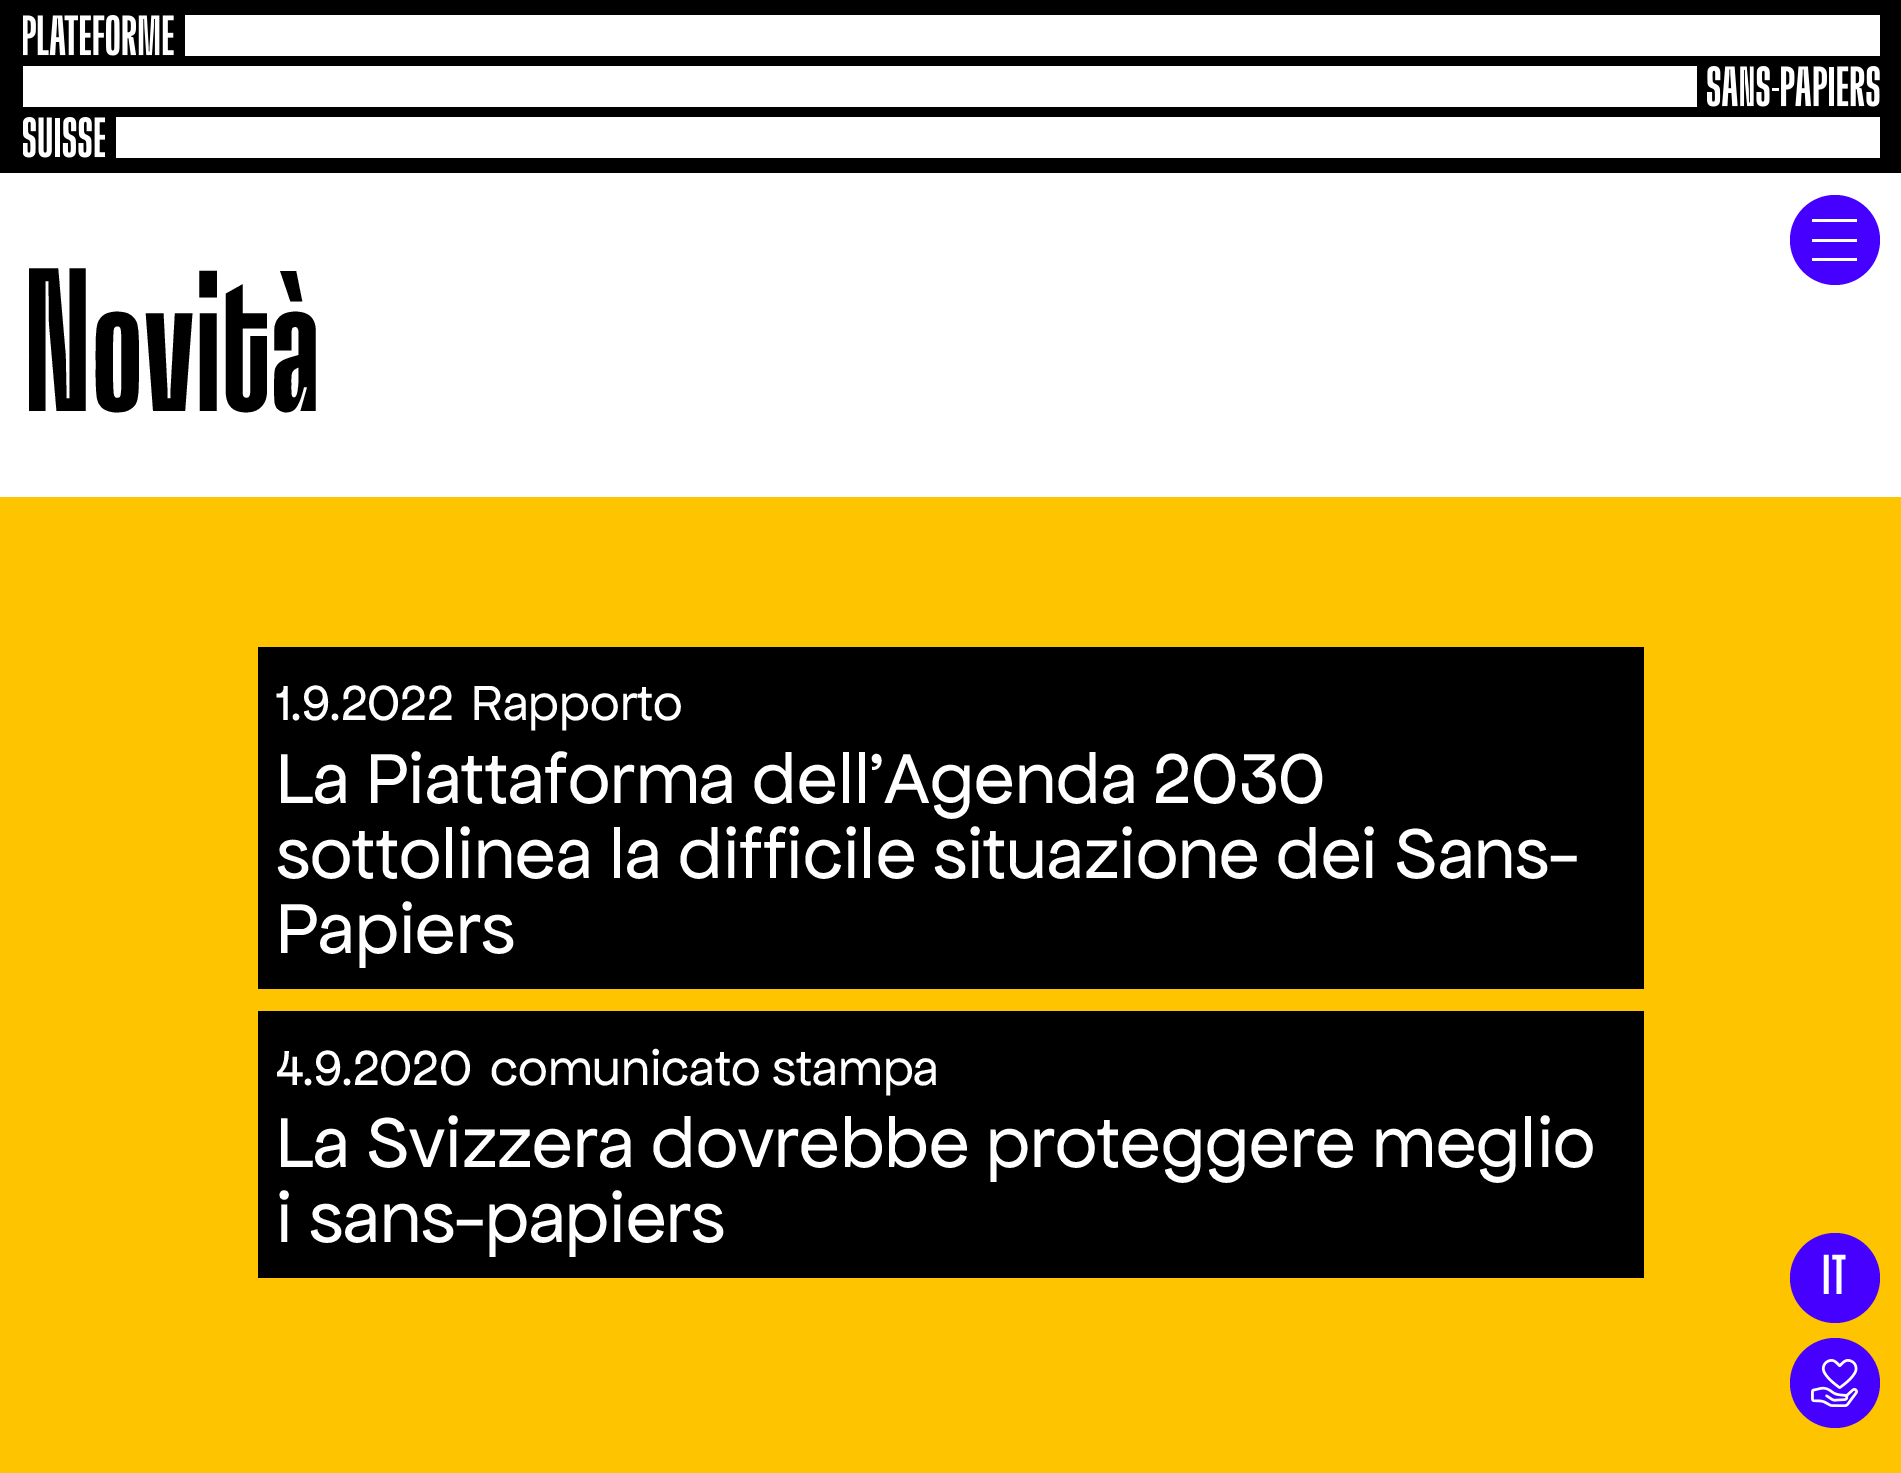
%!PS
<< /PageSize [1901 1473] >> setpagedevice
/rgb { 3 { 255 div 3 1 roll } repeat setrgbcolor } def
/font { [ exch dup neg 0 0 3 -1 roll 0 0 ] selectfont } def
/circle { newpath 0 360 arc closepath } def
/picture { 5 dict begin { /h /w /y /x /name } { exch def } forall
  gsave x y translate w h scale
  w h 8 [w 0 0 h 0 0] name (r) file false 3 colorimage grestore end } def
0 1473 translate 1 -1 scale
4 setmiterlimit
255 255 255 rgb
0 0 1901 1473 rectfill
0 0 0 rgb
0 0 1901 173 rectfill
(img/1.rgb) 23 15 151 41 picture
255 255 255 rgb
185 15 1695 41 rectfill
23 66 1674 41 rectfill
(img/2.rgb) 1707 66 173 41 picture
(img/3.rgb) 23 117 82 41 picture
116 117 1764 41 rectfill
69 0 255 rgb
1835 240 45 circle fill
[
  [1812 219 45 3 255 255 255]
  [1812 239 45 3 255 255 255]
  [1812 258 45 3 255 255 255]
  [0 497 1901 976 255 196 0]
  [258 647 1386 342 0 0 0]
  [258 1011 1386 267 0 0 0]
] { aload pop rgb rectfill } forall
69 0 255 rgb
1835 1278 45 circle fill
1835 1383 45 circle fill
(img/4.rgb) 1811 1359 47 48 picture
/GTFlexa-Medium 204 font
0 0 0 rgb
23 411 moveto (Novità) show
/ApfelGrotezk-Regular 52.5 font
255 255 255 rgb
276 720 moveto (1.9.2022) show
471 720 moveto (Rapporto) show
/ApfelGrotezk-Regular 75 font
[
  [(La Piattaforma dell'Agenda 2030) 276 803]
  [(sottolinea la difficile situazione dei Sans-) 276 878]
  [(Papiers) 276 953]
] { aload pop moveto show } forall
/ApfelGrotezk-Regular 52.5 font
276 1085 moveto (4.9.2020) show
490 1085 moveto (comunicato stampa) show
/ApfelGrotezk-Regular 75 font
276 1167 moveto (La Svizzera dovrebbe proteggere meglio) show
276 1242 moveto (i sans-papiers) show
/GTFlexa-Medium 56 font
1822 1294 moveto 2 0 (IT) ashow
showpage
